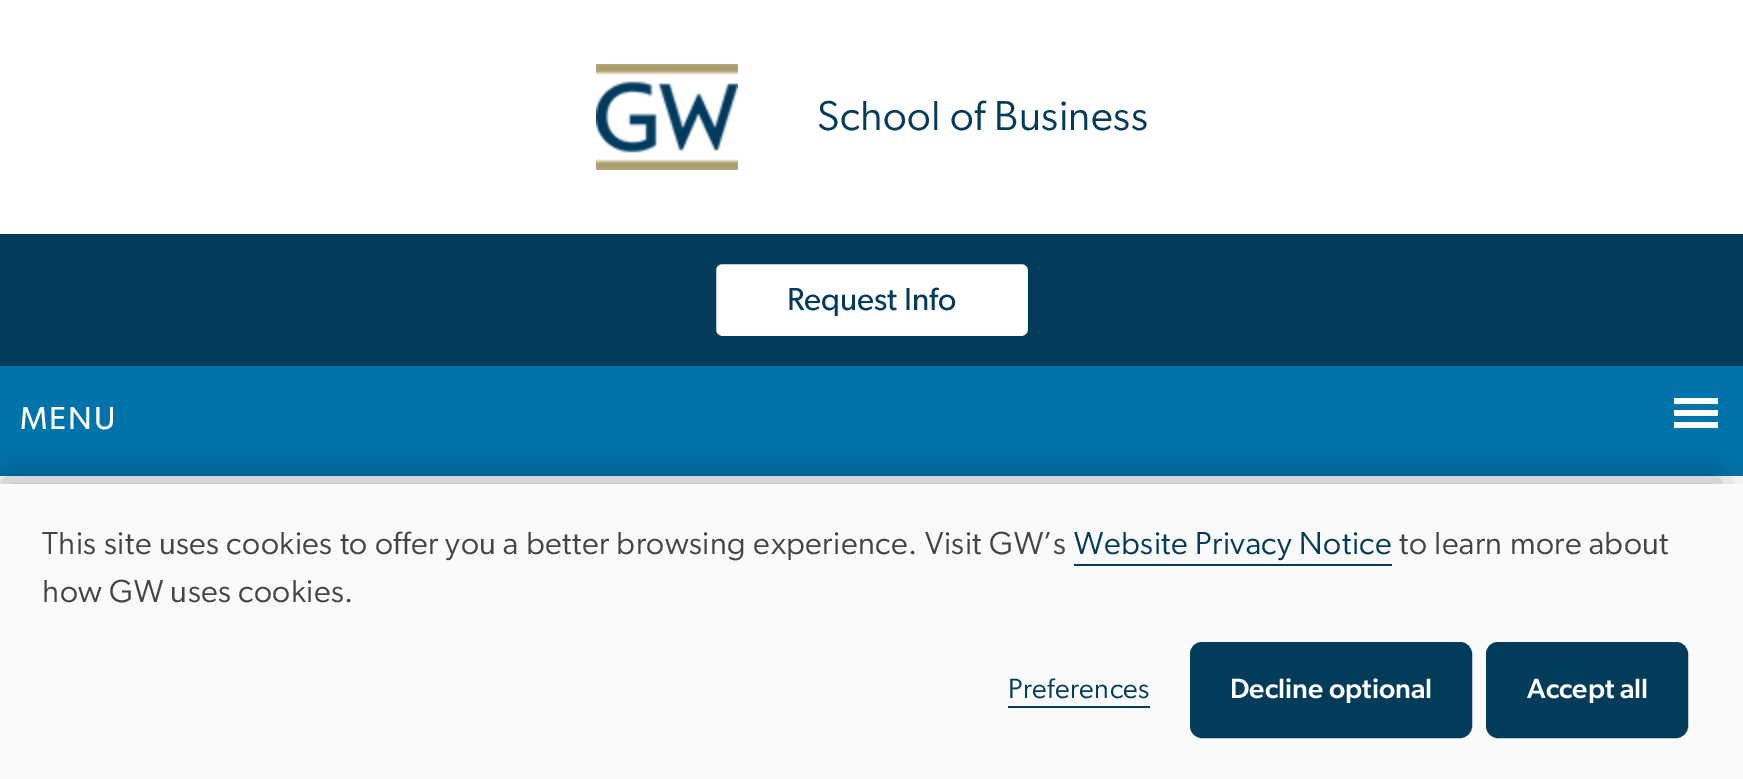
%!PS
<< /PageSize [1743 779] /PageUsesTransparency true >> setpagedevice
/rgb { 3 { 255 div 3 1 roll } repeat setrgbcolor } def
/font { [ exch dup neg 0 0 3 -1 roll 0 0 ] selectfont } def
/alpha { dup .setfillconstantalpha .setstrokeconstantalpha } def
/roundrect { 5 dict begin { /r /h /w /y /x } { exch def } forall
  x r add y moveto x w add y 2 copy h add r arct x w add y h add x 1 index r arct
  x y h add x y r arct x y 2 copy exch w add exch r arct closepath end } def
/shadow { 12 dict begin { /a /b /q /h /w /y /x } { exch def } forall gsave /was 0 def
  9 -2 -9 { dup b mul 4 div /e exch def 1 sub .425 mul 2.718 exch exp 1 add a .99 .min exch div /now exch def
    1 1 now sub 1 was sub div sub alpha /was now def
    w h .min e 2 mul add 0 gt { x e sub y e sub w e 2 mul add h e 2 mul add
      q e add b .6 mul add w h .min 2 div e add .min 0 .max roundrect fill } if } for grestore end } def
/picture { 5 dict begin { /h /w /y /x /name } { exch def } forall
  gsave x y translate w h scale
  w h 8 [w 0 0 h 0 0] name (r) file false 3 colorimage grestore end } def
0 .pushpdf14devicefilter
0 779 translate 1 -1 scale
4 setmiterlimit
255 255 255 rgb
0 0 1743 779 rectfill
(img/1.rgb) 596 64 142 106 picture
3 60 90 rgb
0 234 1743 132 rectfill
255 255 255 rgb
714 262 316 76 8 roundrect gsave fill grestore
3 60 90 rgb
4 setlinewidth
stroke
[
  [0 366 1743 110 0 115 170]
  [1674 398 44 6 255 255 255]
  [1674 410 44 6 255 255 255]
  [1674 422 44 6 255 255 255]
] { aload pop rgb rectfill } forall
5 5 5 rgb
4 478 1716 268 0 19 0.32 shadow
[
  [0 484 1743 295 250 250 250]
  [1074 564 318 2 3 60 90]
  [1008 706 142 2 3 60 90]
] { aload pop rgb rectfill } forall
1193 645 276 90 9 roundrect gsave fill grestore
6 setlinewidth
stroke
1489 645 196 90 9 roundrect gsave fill grestore
stroke
/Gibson-Regular 42 font
817 130 moveto 0.5 0 (School of Business) ashow
/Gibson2-Regular 32 font
787 310 moveto (Request Info) show
255 255 255 rgb
20 429 moveto 2 0 (MENU) ashow
/Gibson-Regular 32 font
68 68 68 rgb
42 554 moveto 0.5 0 (This site uses cookies to offer you a better browsing experience. Visit GW’s) ashow
3 60 90 rgb
1074 554 moveto 0.5 0 (Website Privacy Notice) ashow
68 68 68 rgb
1399 554 moveto 0.5 0 (to learn more about) ashow
42 602 moveto 0.5 0 (how GW uses cookies.) ashow
/Gibson-Regular 28 font
3 60 90 rgb
1008 698 moveto 0.5 0 (Preferences) ashow
/Gibson-Medium 28 font
255 255 255 rgb
1230 698 moveto (Decline optional) show
1527 698 moveto (Accept all) show
.poppdf14devicefilter showpage
